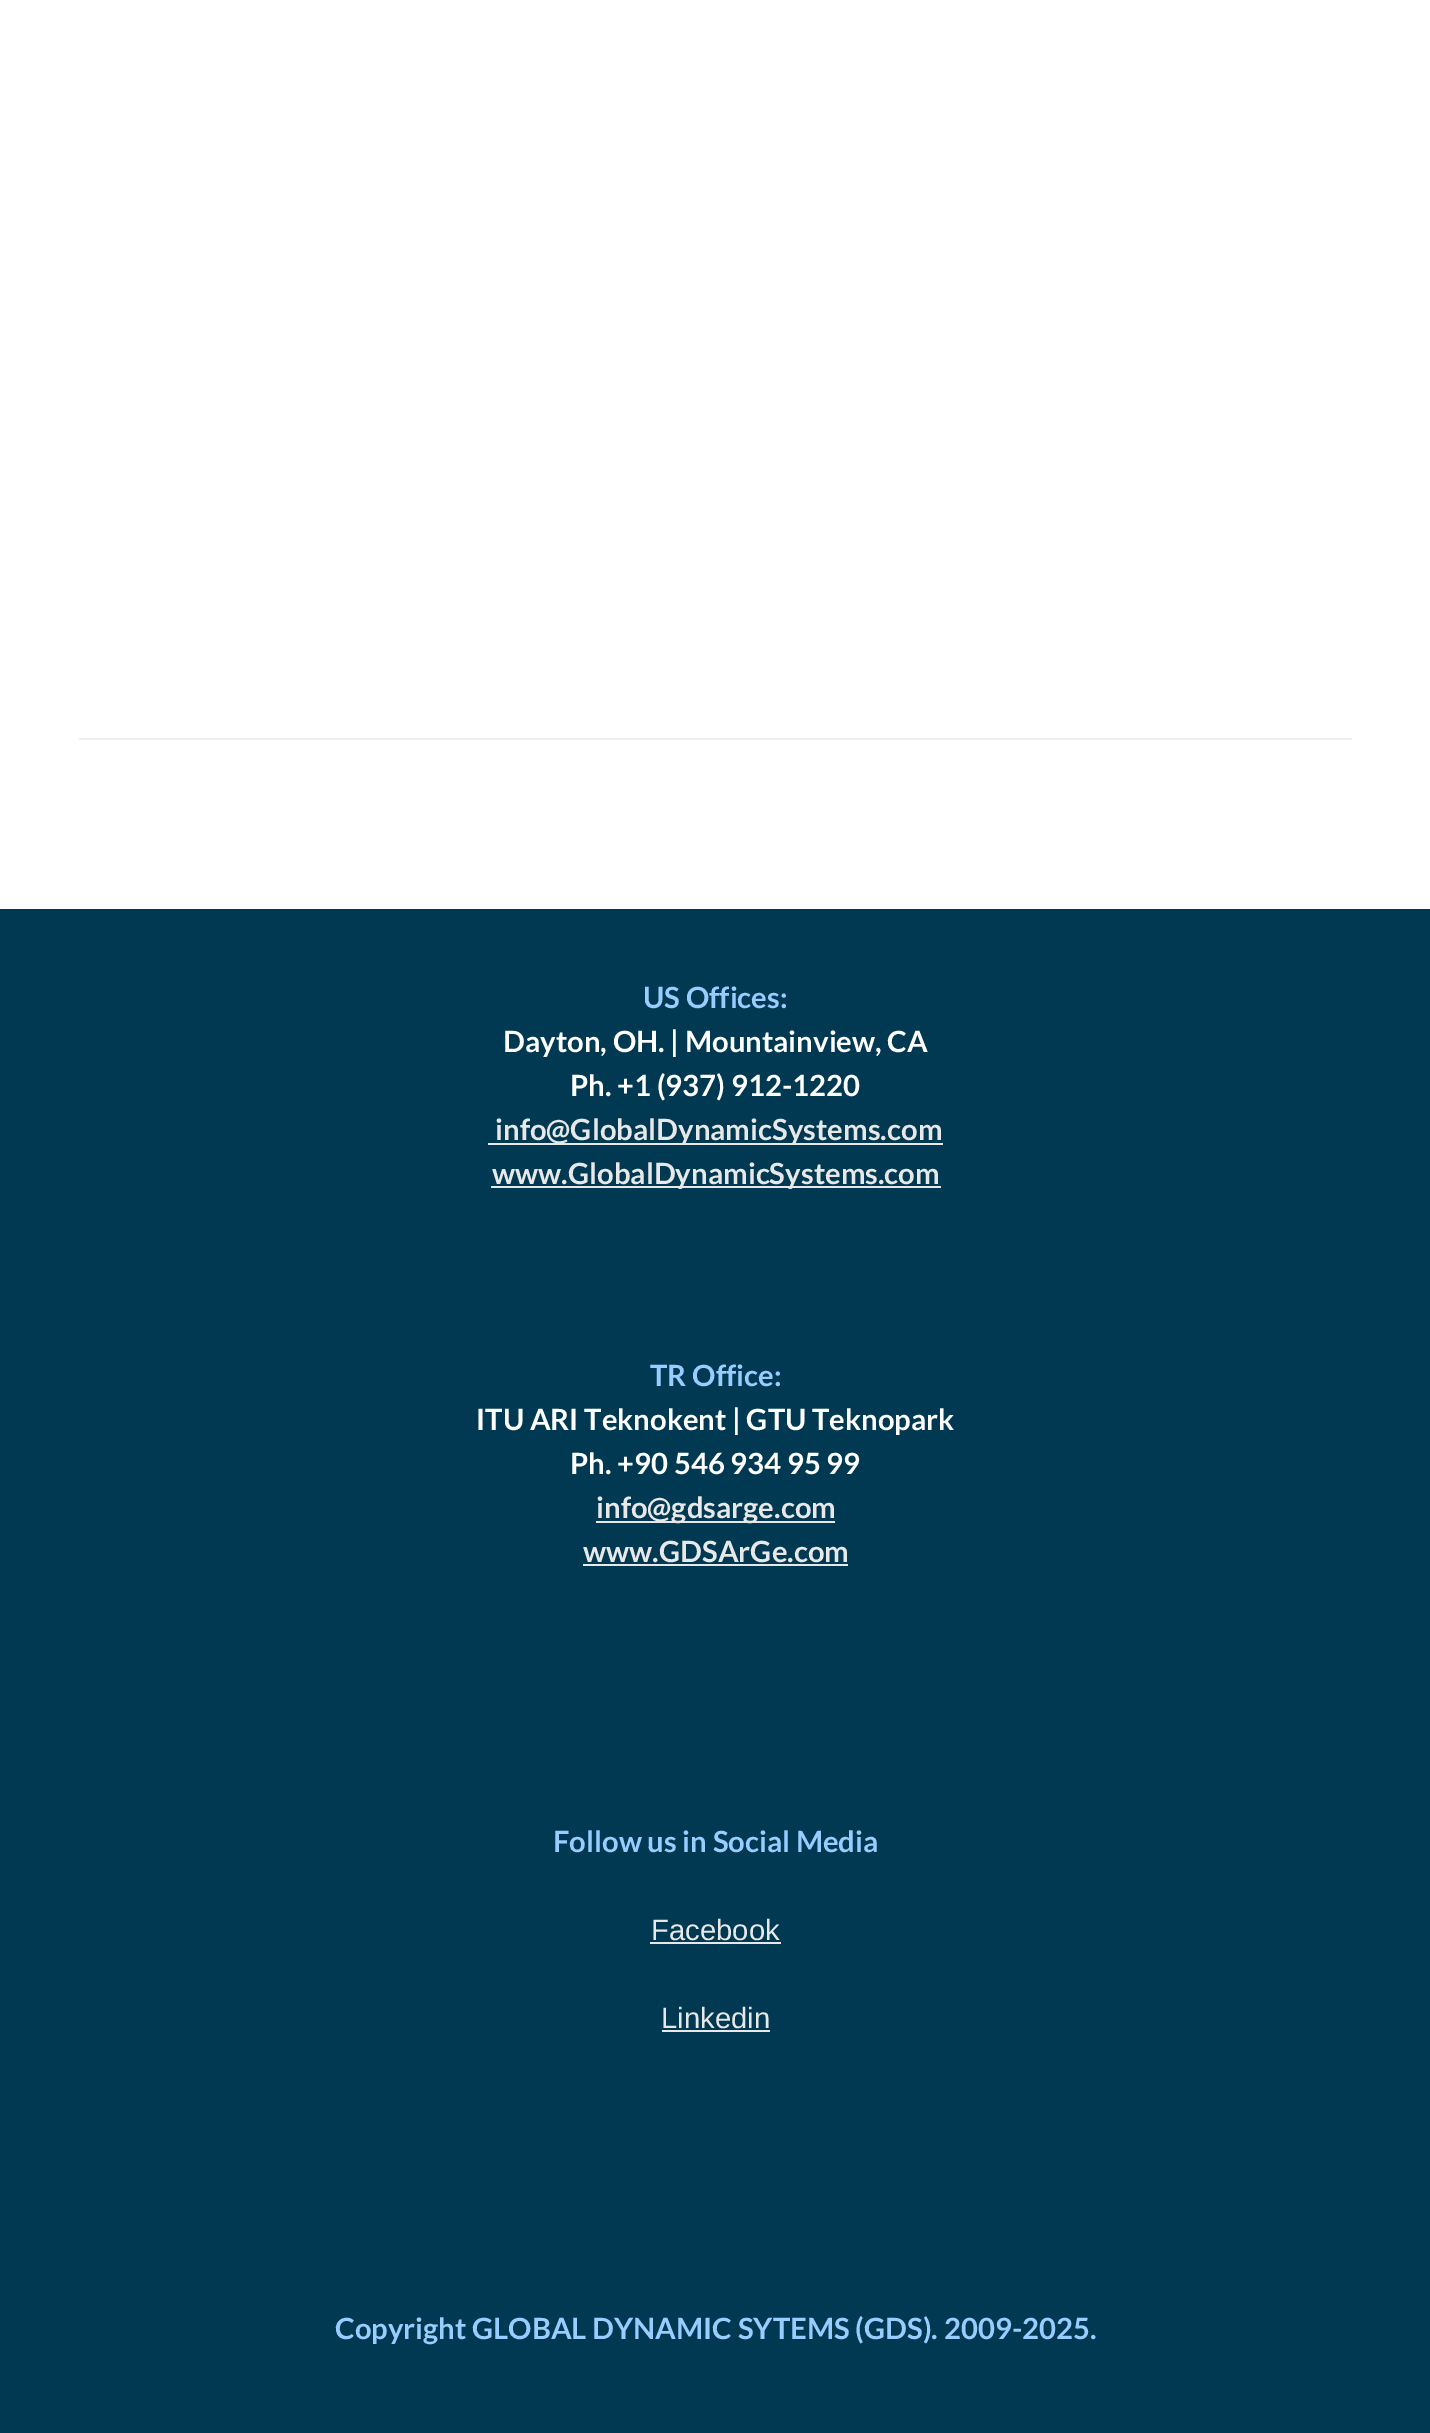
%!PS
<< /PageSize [1430 2433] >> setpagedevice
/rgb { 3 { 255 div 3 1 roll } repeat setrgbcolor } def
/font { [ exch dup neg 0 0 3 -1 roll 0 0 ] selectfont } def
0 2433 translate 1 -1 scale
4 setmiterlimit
0 57 81 rgb
0 0 1430 2433 rectfill
[
  [0 0 1430 909 255 255 255]
  [79 738 1273 2 238 238 238]
  [488 1143 455 2 232 232 232]
  [491 1186 450 2 232 232 232]
  [596 1521 239 2 232 232 232]
  [583 1564 265 2 232 232 232]
  [650 1942 131 2 232 232 232]
  [662 2030 108 2 232 232 232]
] { aload pop rgb rectfill } forall
/Lato-Bold 29.25 font
153 204 255 rgb
643 1008 moveto (US Offices:) show
255 255 255 rgb
503 1052 moveto (Dayton, OH. | Mountainview, CA) show
570 1096 moveto (Ph. +1 \(937\) 912-1220) show
232 232 232 rgb
495 1140 moveto (info@GlobalDynamicSystems.com) show
492 1184 moveto (www.GlobalDynamicSystems.com) show
153 204 255 rgb
650 1386 moveto (TR Office:) show
255 255 255 rgb
476 1430 moveto (ITU ARI Teknokent | GTU Teknopark) show
570 1474 moveto (Ph. +90 546 934 95 99) show
232 232 232 rgb
596 1518 moveto (info@gdsarge.com) show
583 1562 moveto (www.GDSArGe.com) show
153 204 255 rgb
553 1852 moveto (Follow us in Social Media) show
/LiberationSans-Regular 29.25 font
232 232 232 rgb
651 1940 moveto (Facebook) show
661 2028 moveto (Linkedin) show
/Lato-Bold 29.25 font
153 204 255 rgb
335 2339 moveto (Copyright GLOBAL DYNAMIC SYTEMS \(GDS\). 2009-2025.) show
showpage
